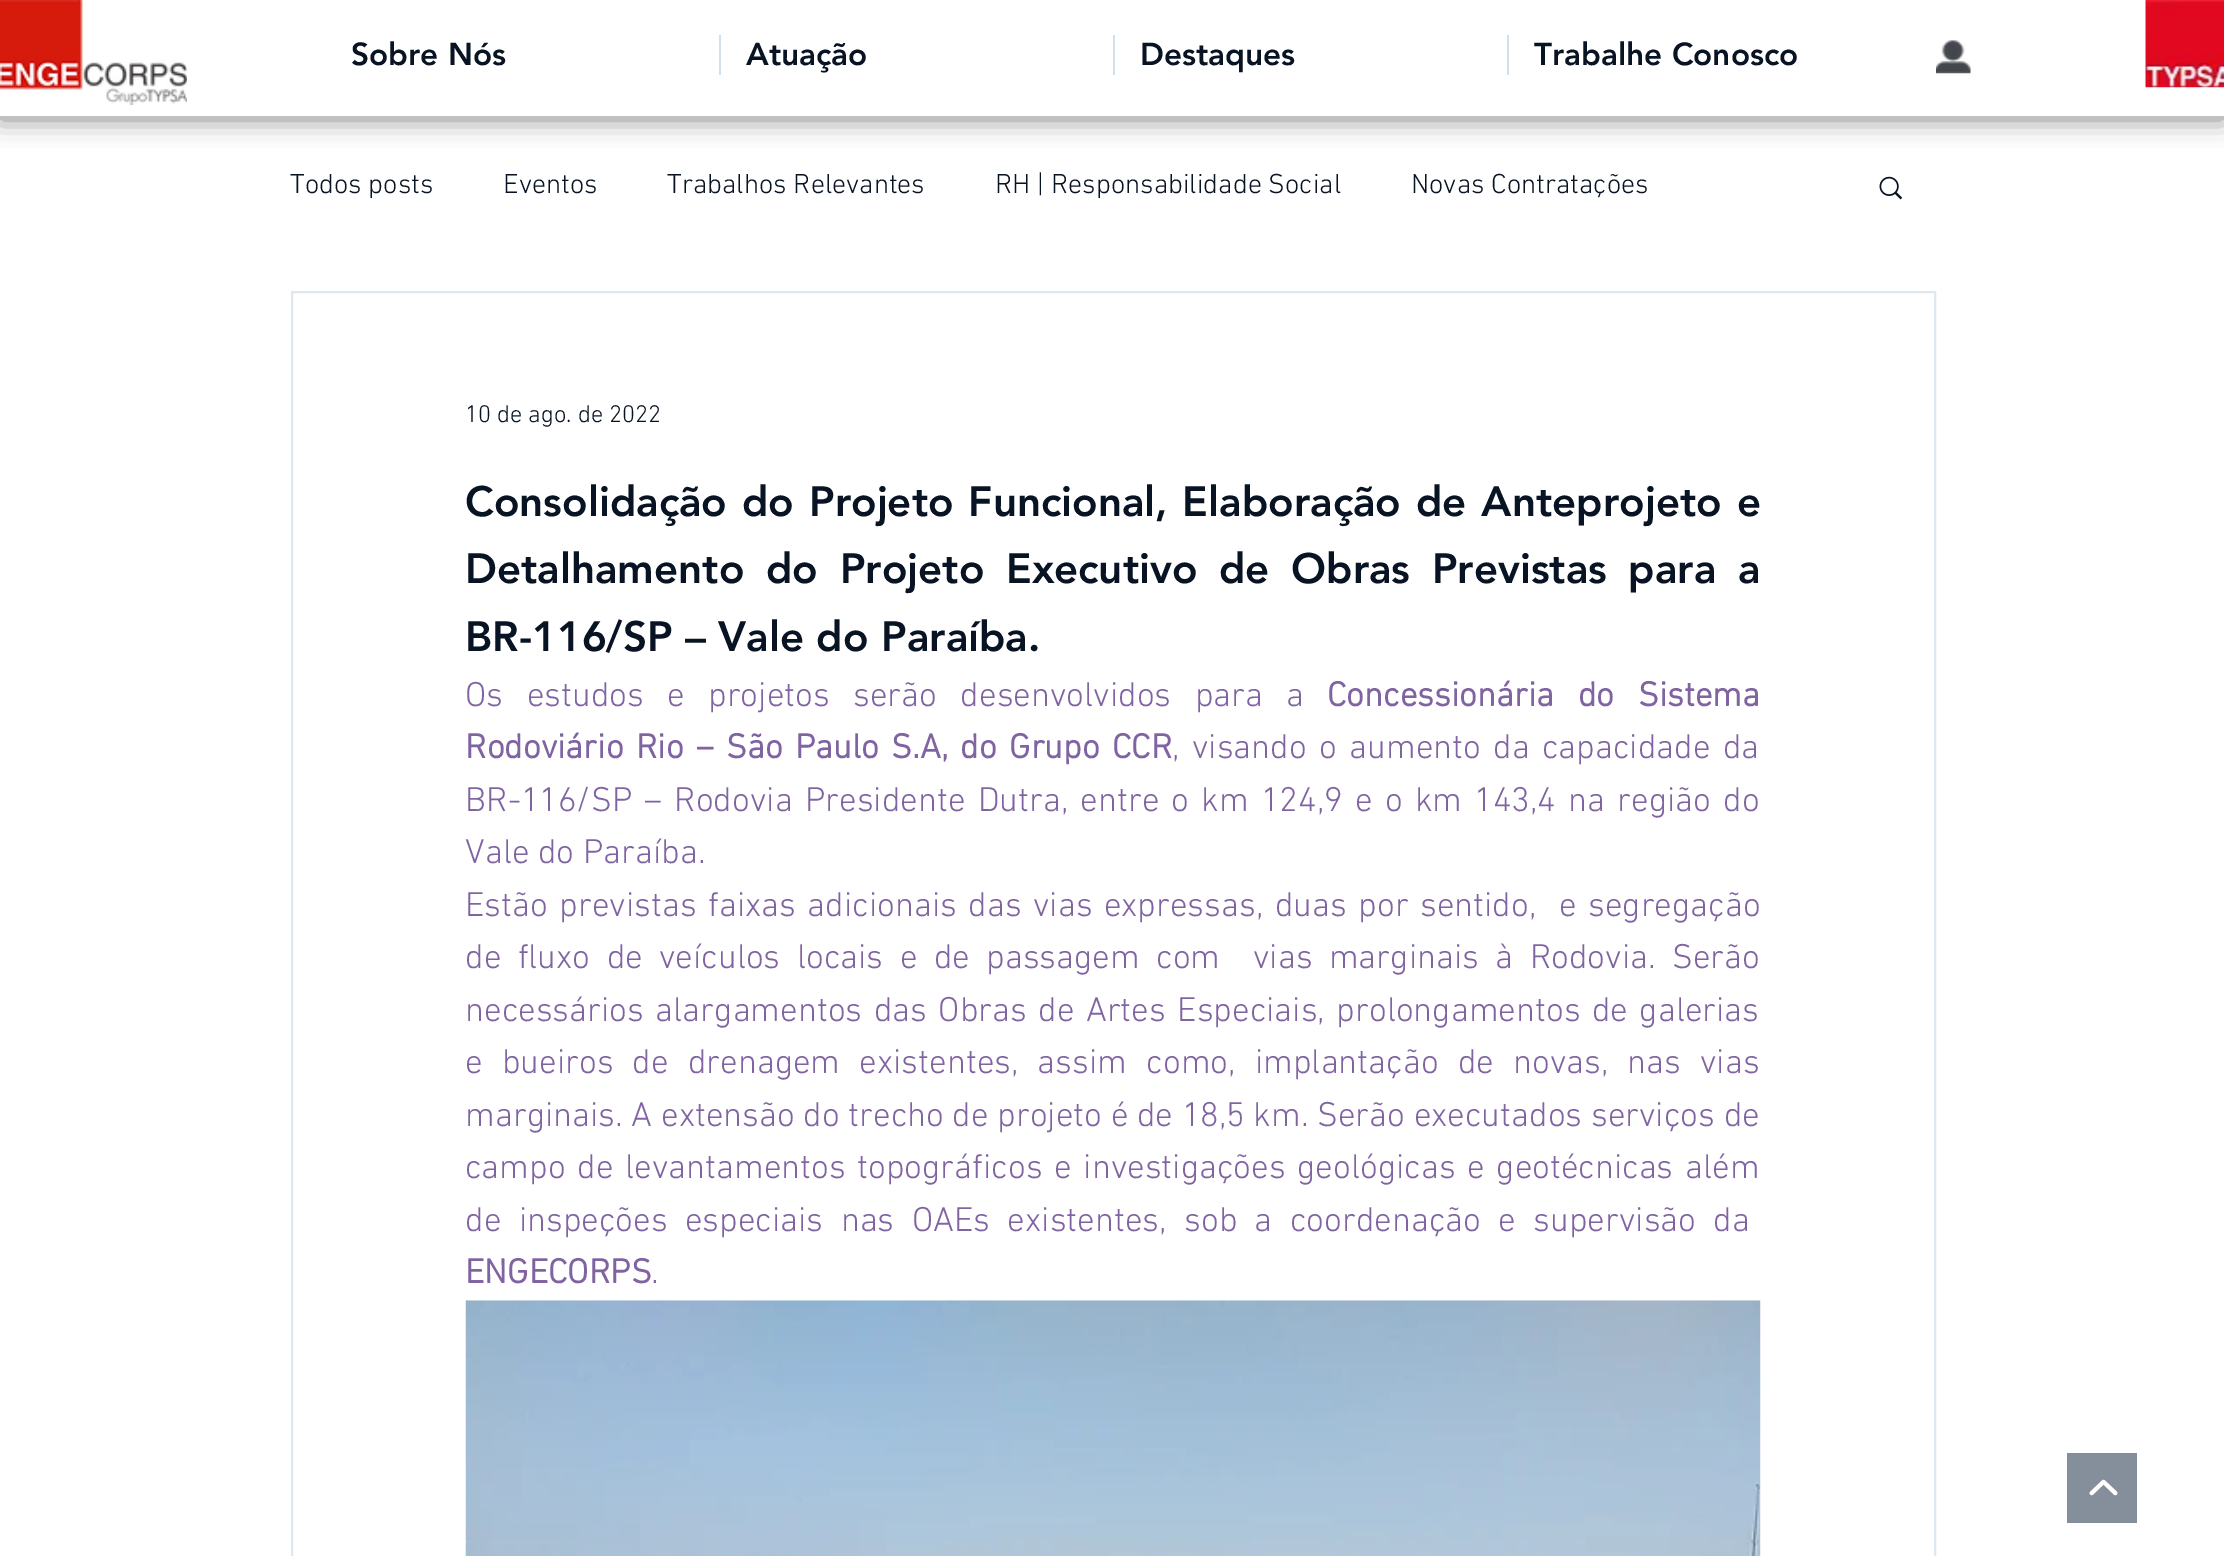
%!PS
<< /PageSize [2224 1556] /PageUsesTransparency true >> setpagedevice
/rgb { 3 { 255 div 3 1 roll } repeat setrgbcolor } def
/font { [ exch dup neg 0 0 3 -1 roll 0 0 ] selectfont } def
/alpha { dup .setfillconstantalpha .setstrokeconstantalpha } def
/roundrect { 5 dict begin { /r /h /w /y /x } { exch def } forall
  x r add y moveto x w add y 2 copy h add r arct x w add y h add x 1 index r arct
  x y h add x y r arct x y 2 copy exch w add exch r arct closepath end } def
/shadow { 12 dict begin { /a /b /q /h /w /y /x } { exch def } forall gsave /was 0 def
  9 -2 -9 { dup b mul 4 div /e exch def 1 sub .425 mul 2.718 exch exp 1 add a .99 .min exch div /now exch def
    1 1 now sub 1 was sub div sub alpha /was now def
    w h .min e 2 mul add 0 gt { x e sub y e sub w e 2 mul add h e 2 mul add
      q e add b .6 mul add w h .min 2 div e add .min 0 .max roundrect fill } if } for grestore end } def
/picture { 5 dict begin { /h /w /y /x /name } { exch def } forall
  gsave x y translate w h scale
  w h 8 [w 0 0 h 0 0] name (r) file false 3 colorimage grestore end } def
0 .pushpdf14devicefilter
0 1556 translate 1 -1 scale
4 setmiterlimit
255 255 255 rgb
0 0 2224 1556 rectfill
0 0 0 rgb
0 4 2224 115 0 13 0.49 shadow
255 255 255 rgb
0 0 2224 116 rectfill
(img/1.rgb) 0 0 187 105 picture
[
  [719 35 2 40 209 224 235]
  [1113 35 2 40 209 224 235]
  [1507 35 2 40 209 224 235]
] { aload pop rgb rectfill } forall
(img/2.rgb) 1936 40 35 34 picture
(img/3.rgb) 2145 0 79 88 picture
(img/4.rgb) 1879 176 24 24 picture
221 232 240 rgb
2 setlinewidth
292 292 1643 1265 rectstroke
(img/5.rgb) 465 1300 1296 256 picture
133 143 156 rgb
2067 1453 70 70 rectfill
(img/6.rgb) 2089 1479 29 17 picture
/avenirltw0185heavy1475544-Black 31.5 font
8 20 35 rgb
[
  [(Sobre Nós) 351 65]
  [(Atuação) 746 65]
  [(Destaques) 1140 65]
  [(Trabalhe Conosco) 1534 65]
] { aload pop moveto show } forall
/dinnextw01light-Light 28 font
[
  [(Todos posts) 290 193]
  [(Eventos) 503 193]
  [(Trabalhos Relevantes) 667 193]
  [(RH | Responsabilidade Social) 995 193]
  [(Novas Contratações) 1411 193]
] { aload pop moveto show } forall
/dinnextw01light-Light 24.5 font
465 422 moveto (10 de ago. de 2022) show
/avenirltw0185heavy1475544-Black 42 font
465 516 moveto 2.5 0 32 (Consolidação do Projeto Funcional, Elaboração de Anteprojeto e) widthshow
465 583 moveto 9.25 0 32 (Detalhamento do Projeto Executivo de Obras Previstas para a) widthshow
465 651 moveto (BR-116/SP – Vale do Paraíba.) show
/dinnextw01light-Light 35 font
128 100 162 rgb
465 706 moveto 14.75 0 32 (Os estudos e projetos serão desenvolvidos para a) widthshow
/dinnextw01light-Bold 35 font
1327 706 moveto 15 0 32 (Concessionária do Sistema) widthshow
465 758 moveto 3.75 0 32 (Rodoviário Rio – São Paulo S.A, do Grupo CCR) widthshow
/dinnextw01light-Light 35 font
1172 758 moveto 3.75 0 32 (, visando o aumento da capacidade da) widthshow
465 811 moveto 3.6 0 32 (BR-116/SP – Rodovia Presidente Dutra, entre o km 124,9 e o km 143,4 na região do) widthshow
465 863 moveto (Vale do Paraíba.) show
465 916 moveto 2.75 0 32 (Estão previstas faixas adicionais das vias expressas, duas por sentido,  e segregação) widthshow
465 968 moveto 7.75 0 32 (de fluxo de veículos locais e de passagem com  vias marginais à Rodovia. Serão) widthshow
465 1021 moveto 2.75 0 32 (necessários alargamentos das Obras de Artes Especiais, prolongamentos de galerias) widthshow
465 1073 moveto 10.5 0 32 (e bueiros de drenagem existentes, assim como, implantação de novas, nas vias) widthshow
465 1126 moveto (marginais. A extensão do trecho de projeto é de 18,5 km. Serão executados serviços de) show
465 1178 moveto 3 0 32 (campo de levantamentos topográficos e investigações geológicas e geotécnicas além) widthshow
465 1231 moveto 8.75 0 32 (de inspeções especiais nas OAEs existentes, sob a coordenação e supervisão da) widthshow
/dinnextw01light-Bold 35 font
465 1283 moveto (ENGECORPS) show
/dinnextw01light-Light 35 font
651 1283 moveto (.) show
.poppdf14devicefilter showpage
